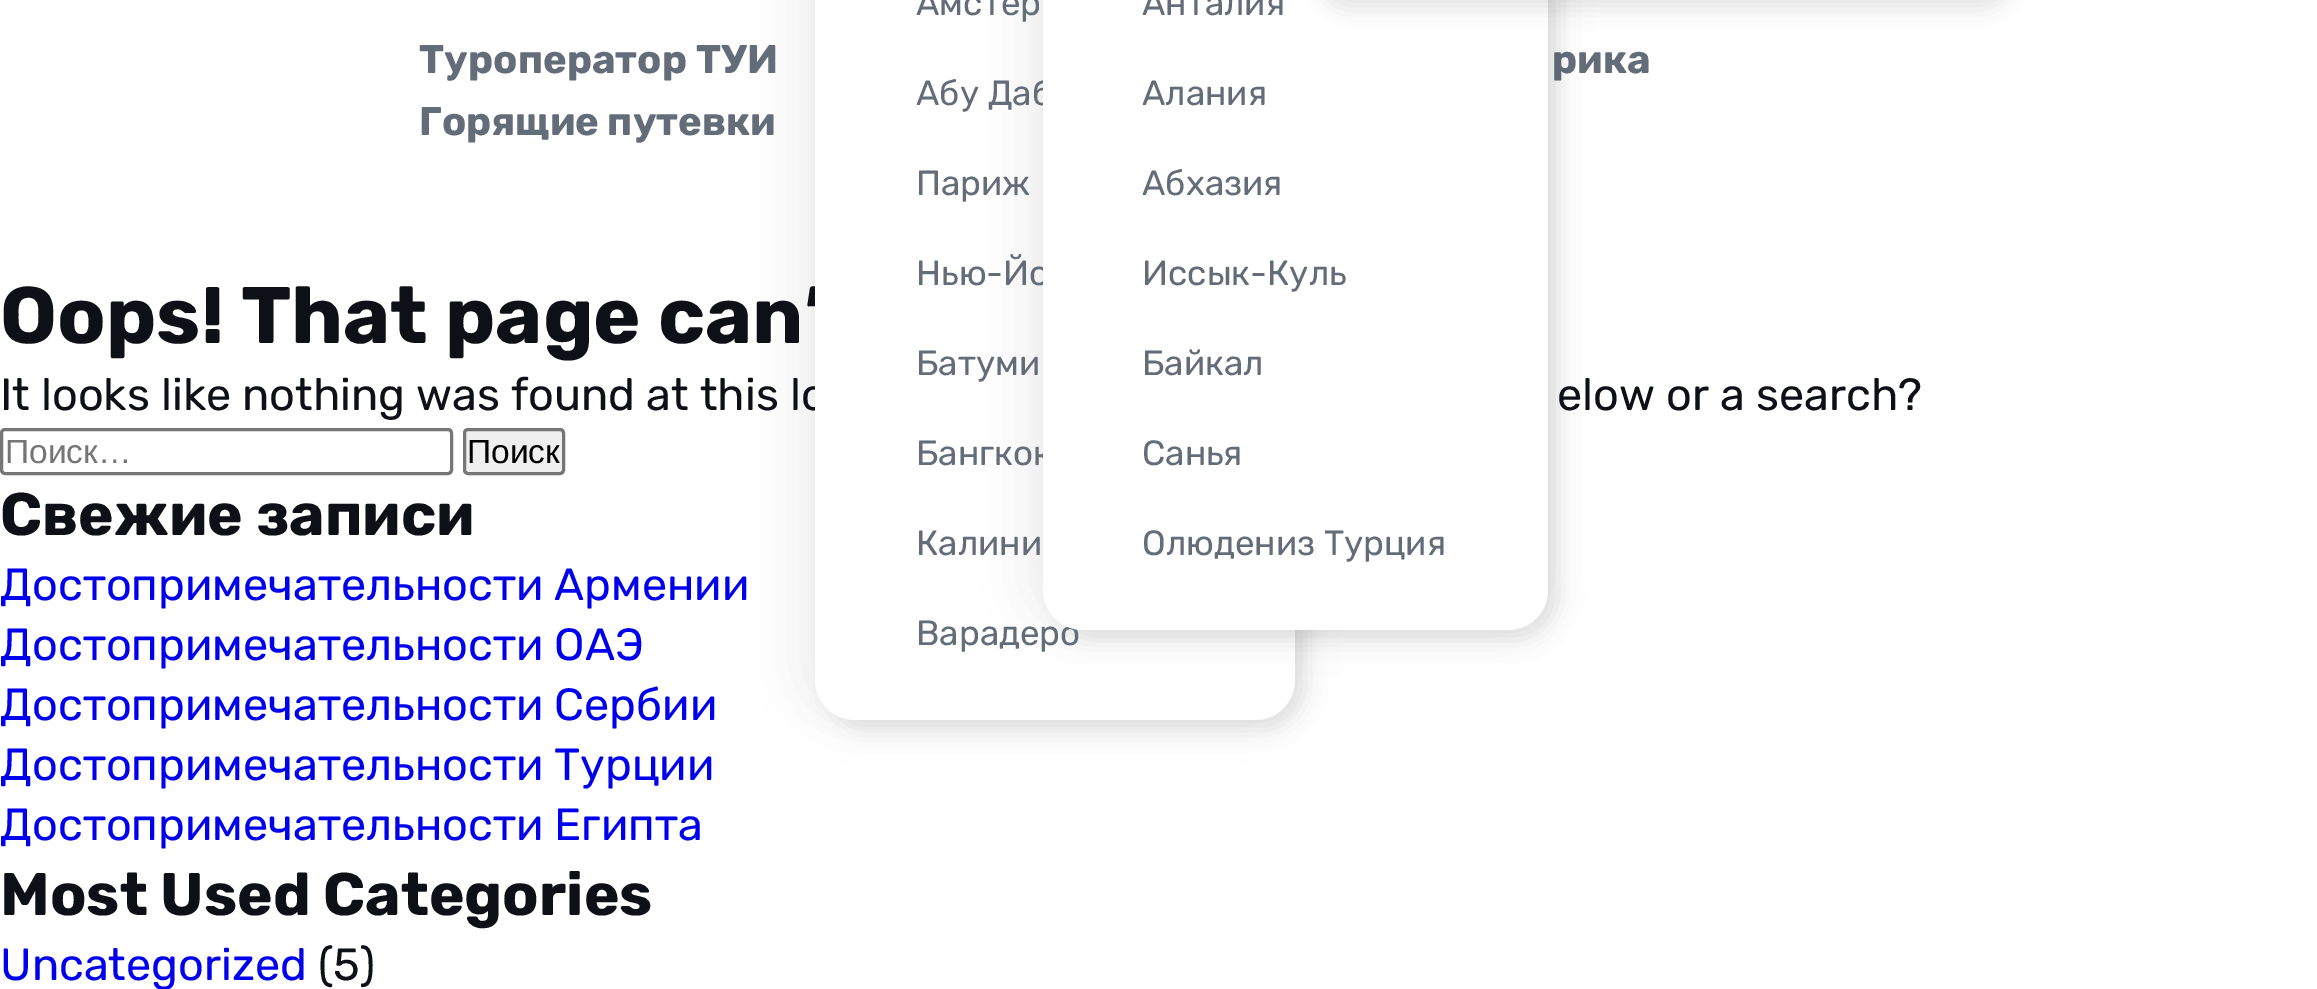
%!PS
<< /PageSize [2317 989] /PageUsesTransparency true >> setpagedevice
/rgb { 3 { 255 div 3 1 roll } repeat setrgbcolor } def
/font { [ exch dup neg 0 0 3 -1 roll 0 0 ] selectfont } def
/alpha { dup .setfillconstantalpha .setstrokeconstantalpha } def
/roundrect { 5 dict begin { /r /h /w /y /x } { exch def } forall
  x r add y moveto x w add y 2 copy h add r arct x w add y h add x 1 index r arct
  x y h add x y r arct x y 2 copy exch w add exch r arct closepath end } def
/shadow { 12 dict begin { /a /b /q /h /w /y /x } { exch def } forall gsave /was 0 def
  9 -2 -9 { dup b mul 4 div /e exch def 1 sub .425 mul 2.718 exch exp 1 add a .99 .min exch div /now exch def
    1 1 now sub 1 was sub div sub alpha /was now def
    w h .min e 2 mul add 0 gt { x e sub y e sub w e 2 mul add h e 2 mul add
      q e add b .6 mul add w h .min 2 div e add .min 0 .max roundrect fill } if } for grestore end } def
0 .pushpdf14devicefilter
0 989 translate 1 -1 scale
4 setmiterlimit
255 255 255 rgb
0 0 2317 989 rectfill
0 0 0 rgb
793 -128 505 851 53 25 0.05 shadow
825 -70 480 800 40 10 0.1 shadow
118 118 118 rgb
3 setlinewidth
1.5 429.5 450 44 3.5 roundrect stroke
239 239 239 rgb
464.5 429.5 99 44 3.5 roundrect gsave fill grestore
118 118 118 rgb
stroke
/Rubik-Bold 40 font
99 108 121 rgb
[
  [(Туроператор ТУИ) 419 73]
  [(рика) 1552 73]
  [(Горящие путевки) 419 135]
] { aload pop moveto show } forall
/Rubik-Bold 80 font
13 16 23 rgb
0 343 moveto (Oops! That page can’) show
/Rubik-Regular 45 font
0 410 moveto (It looks like nothing was found at this lo) show
255 255 255 rgb
815 -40 480 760 40 roundrect fill
0 0 0 rgb
1053 -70 505 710 40 10 0.1 shadow
1020 -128 530 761 53 25 0.05 shadow
/Rubik-Regular 35 font
99 108 121 rgb
[
  [(Варадеро) 916 645]
  [(Бангкок) 916 465]
  [(Нью-Йо) 916 285]
  [(Абу Даб) 916 105]
] { aload pop moveto show } forall
255 255 255 rgb
1043 -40 505 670 40 roundrect fill
0 0 0 rgb
1315 -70 700 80 40 10 0.1 shadow
99 108 121 rgb
[
  [(Олюдениз Турция) 1142 555]
  [(Санья) 1142 465]
  [(Байкал) 1142 375]
  [(Иссык-Куль) 1142 285]
  [(Абхазия) 1142 195]
  [(Алания) 1142 105]
  [(Анталия) 1142 15]
  [(Калини) 916 555]
  [(Батуми) 916 375]
  [(Париж) 916 195]
  [(Амстер) 916 15]
] { aload pop moveto show } forall
/Rubik-Regular 45 font
13 16 23 rgb
1557 410 moveto (elow or a search?) show
/LiberationSans-Regular 33.5 font
117 117 117 rgb
5 463 moveto (Поиск…) show
0 0 0 rgb
467 463 moveto (Поиск) show
/Rubik-Bold 60 font
13 16 23 rgb
0 535 moveto (Свежие записи) show
/Rubik-Regular 45 font
0 0 238 rgb
[
  [(Достопримечательности Армении) 0 600]
  [(Достопримечательности ОАЭ) 0 660]
  [(Достопримечательности Сербии) 0 720]
  [(Достопримечательности Турции) 0 780]
  [(Достопримечательности Египта) 0 840]
] { aload pop moveto show } forall
/Rubik-Bold 60 font
13 16 23 rgb
0 915 moveto (Most Used Categories) show
/Rubik-Regular 45 font
0 0 238 rgb
0 980 moveto (Uncategorized) show
13 16 23 rgb
318 980 moveto (\(5\)) show
.poppdf14devicefilter showpage
